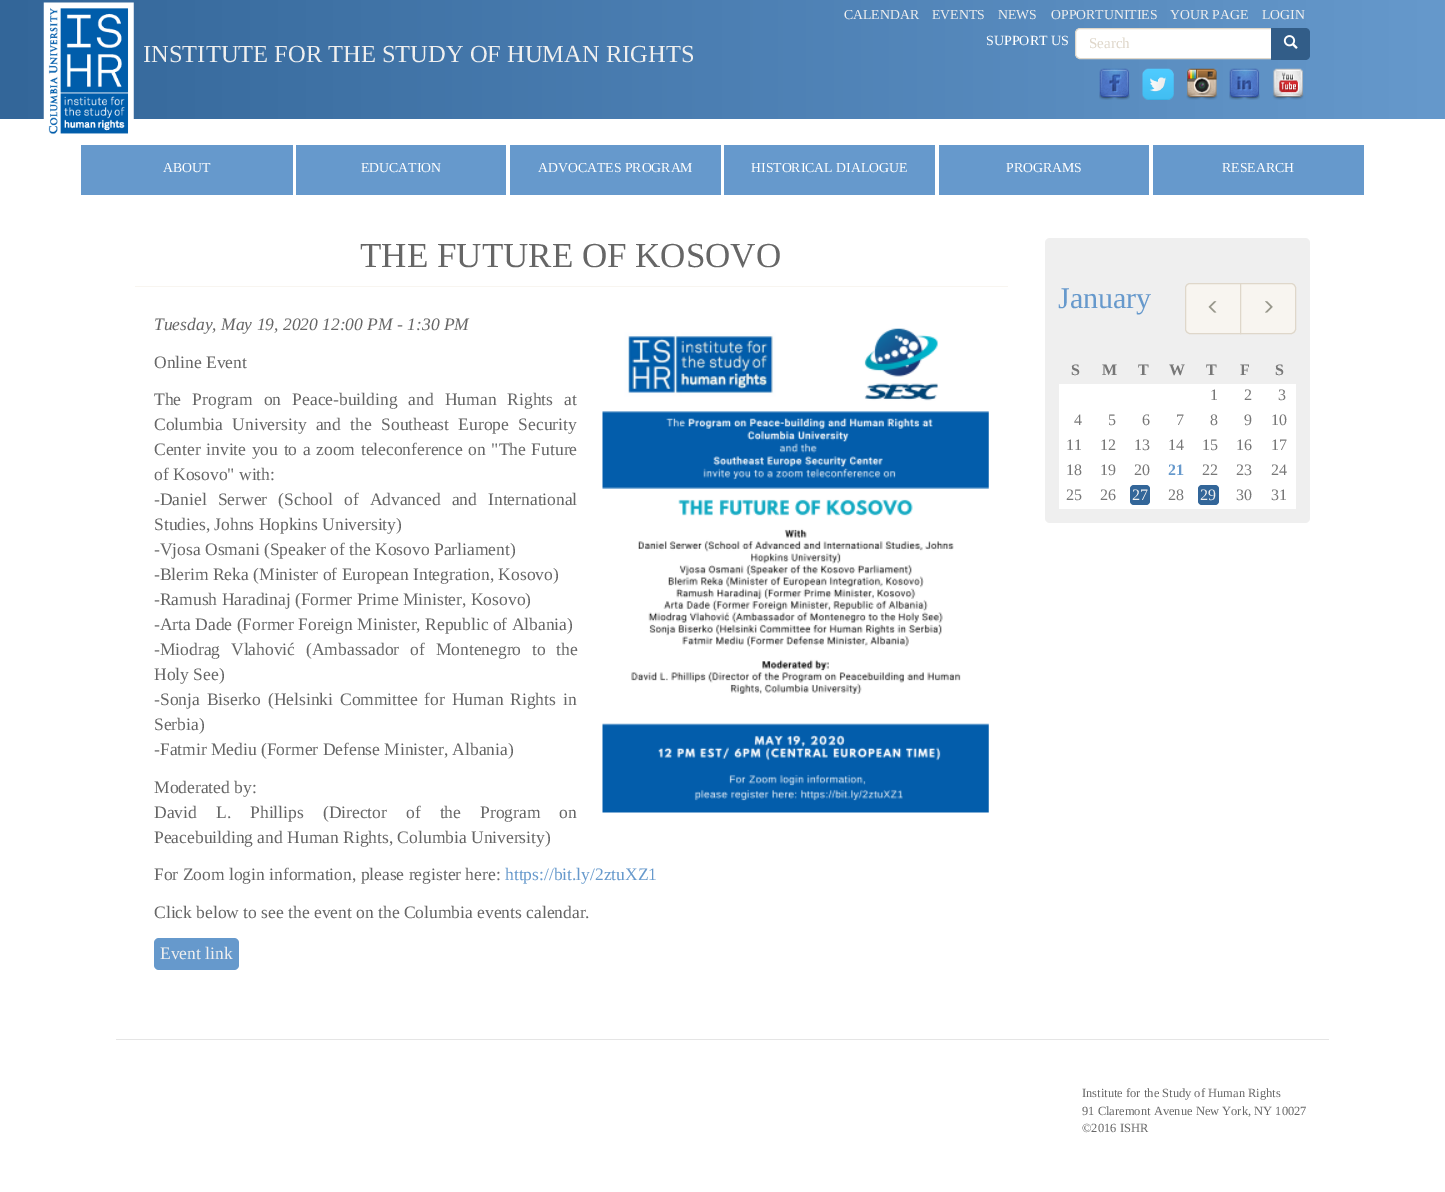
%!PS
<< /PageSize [1445 1192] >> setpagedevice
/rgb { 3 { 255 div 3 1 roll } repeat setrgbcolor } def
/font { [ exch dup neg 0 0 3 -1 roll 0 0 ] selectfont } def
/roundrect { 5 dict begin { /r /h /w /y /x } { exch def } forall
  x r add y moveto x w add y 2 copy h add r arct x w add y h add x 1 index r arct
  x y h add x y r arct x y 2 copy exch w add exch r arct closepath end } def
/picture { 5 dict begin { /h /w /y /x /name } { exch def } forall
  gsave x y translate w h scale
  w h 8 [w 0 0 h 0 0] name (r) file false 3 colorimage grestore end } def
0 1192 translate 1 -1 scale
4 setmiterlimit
255 255 255 rgb
0 0 1445 1192 rectfill
gsave 0 0 moveto 1445 0 lineto 1445 119 lineto 0 119 lineto closepath clip newpath
<< /ShadingType 2 /ColorSpace /DeviceRGB /Coords [0 59 1445 59] /Extend [true true] /Function << /FunctionType 2 /Domain [0 1] /C0 [0.2 0.4 0.6] /C1 [0.4 0.6 0.8] /N 1 >> >> shfill grestore
1080 28.5 moveto 1272.5 28.5 lineto 1272.5 58.5 lineto 1080 58.5 lineto 1077.5 58.5 1075.5 56.5 1075.5 54 curveto 1075.5 33 lineto 1075.5 30.5 1077.5 28.5 1080 28.5 curveto closepath gsave fill grestore
223 215 202 rgb
stroke
50 93 136 rgb
1271 28 moveto 1305 28 lineto 1308 28 1310 30 1310 33 curveto 1310 55 lineto 1310 58 1308 60 1305 60 curveto 1271 60 lineto closepath fill
(img/1.rgb) 1283 35 15 14 picture
(img/2.rgb) 1099 68 31 32 picture
(img/3.rgb) 1142 68 32 32 picture
(img/4.rgb) 1186 68 32 32 picture
(img/5.rgb) 1229 68 31 32 picture
(img/6.rgb) 1272 68 32 32 picture
(img/7.rgb) 43 2 91 133 picture
[
  [81 145 212 50 102 153 204]
  [296 145 210 50 102 153 204]
  [510 145 211 50 102 153 204]
  [724 145 211 50 102 153 204]
  [939 145 210 50 102 153 204]
  [1153 145 211 50 102 153 204]
  [135 286 873 1 248 245 240]
] { aload pop rgb rectfill } forall
(img/8.rgb) 602 328 387 485 picture
102 153 204 rgb
154 938 85 32 5 roundrect fill
239 239 239 rgb
1045 238 265 285 5 roundrect fill
248 245 240 rgb
1190 283.5 moveto 1240.5 283.5 lineto 1240.5 333.5 lineto 1190 333.5 lineto 1187.5 333.5 1185.5 331.5 1185.5 329 curveto 1185.5 288 lineto 1185.5 285.5 1187.5 283.5 1190 283.5 curveto closepath gsave fill grestore
223 215 202 rgb
stroke
(img/9.rgb) 1208 301 9 12 picture
248 245 240 rgb
1240.5 283.5 moveto 1291 283.5 lineto 1293.5 283.5 1295.5 285.5 1295.5 288 curveto 1295.5 329 lineto 1295.5 331.5 1293.5 333.5 1291 333.5 curveto 1240.5 333.5 lineto closepath gsave fill grestore
223 215 202 rgb
stroke
(img/10.rgb) 1265 301 8 12 picture
255 255 255 rgb
1059 384 237 125 rectfill
51 102 153 rgb
1130 485 20 20 4 roundrect fill
1198 485 21 20 4 roundrect fill
229 229 229 rgb
116 1039 1213 1 rectfill
/LiberationSerif-Regular 13.75 font
239 239 239 rgb
[
  [(CALENDAR) 844 19]
  [(EVENTS) 932 19]
  [(NEWS) 998 19]
  [(OPPORTUNITIES) 1051 19]
  [(YOUR PAGE) 1170 19]
  [(LOGIN) 1262 19]
] { aload pop moveto show } forall
/LiberationSerif-Regular 14 font
255 255 255 rgb
986 45 moveto (SUPPORT US) show
/LiberationSerif-Regular 15 font
223 215 202 rgb
1089 48 moveto (Search) show
/LiberationSerif-Regular 24.5 font
239 239 239 rgb
143 62 moveto (INSTITUTE FOR THE STUDY OF HUMAN RIGHTS) show
/LiberationSerif-Regular 13.75 font
255 255 255 rgb
[
  [(ABOUT) 163 172]
  [(EDUCATION) 361 172]
  [(ADVOCATES PROGRAM) 538 172]
  [(HISTORICAL DIALOGUE) 751 172]
  [(PROGRAMS) 1006 172]
  [(RESEARCH) 1222 172]
] { aload pop moveto show } forall
/LiberationSerif-Regular 35 font
102 102 102 rgb
360 267 moveto (THE FUTURE OF KOSOVO) show
/LiberationSerif-Italic 17.5 font
154 330 moveto (Tuesday, May 19, 2020 12:00 PM - 1:30 PM) show
/LiberationSerif-Regular 17.5 font
154 368 moveto (Online Event) show
154 405 moveto 6.75 0 32 (The Program on Peace-building and Human Rights at) widthshow
154 430 moveto 5 0 32 (Columbia University and the Southeast Europe Security) widthshow
154 455 moveto 1.25 0 32 (Center invite you to a zoom teleconference on "The Future) widthshow
154 480 moveto (of Kosovo" with:) show
154 505 moveto 6.75 0 32 (-Daniel Serwer \(School of Advanced and International) widthshow
[
  [(Studies, Johns Hopkins University\)) 154 530]
  [(-Vjosa Osmani \(Speaker of the Kosovo Parliament\)) 154 555]
  [(-Blerim Reka \(Minister of European Integration, Kosovo\)) 154 580]
  [(-Ramush Haradinaj \(Former Prime Minister, Kosovo\)) 154 605]
  [(-Arta Dade \(Former Foreign Minister, Republic of Albania\)) 154 630]
] { aload pop moveto show } forall
154 655 moveto 6.5 0 32 (-Miodrag Vlahović \(Ambassador of Montenegro to the) widthshow
154 680 moveto (Holy See\)) show
154 705 moveto 2.5 0 32 (-Sonja Biserko \(Helsinki Committee for Human Rights in) widthshow
[
  [(Serbia\)) 154 730]
  [(-Fatmir Mediu \(Former Defense Minister, Albania\)) 154 755]
  [(Moderated by:) 154 793]
] { aload pop moveto show } forall
154 818 moveto 14.75 0 32 (David L. Phillips \(Director of the Program on) widthshow
154 843 moveto (Peacebuilding and Human Rights, Columbia University\)) show
154 880 moveto (For Zoom login information, please register here:) show
102 153 204 rgb
505 880 moveto (https://bit.ly/2ztuXZ1) show
102 102 102 rgb
154 918 moveto (Click below to see the event on the Columbia events calendar.) show
239 239 239 rgb
160 959 moveto (Event link) show
/LiberationSerif-Regular 30 font
102 153 204 rgb
1058 308 moveto (January) show
/LiberationSerif-Bold 16 font
119 119 119 rgb
[
  [(S) 1071 375]
  [(M) 1102 375]
  [(T) 1138 375]
  [(W) 1169 375]
  [(T) 1206 375]
  [(F) 1240 375]
  [(S) 1275 375]
] { aload pop moveto show } forall
/LiberationSerif-Regular 16 font
[
  [(1) 1210 400]
  [(2) 1244 400]
  [(3) 1278 400]
  [(4) 1074 425]
  [(5) 1108 425]
  [(6) 1142 425]
  [(7) 1176 425]
  [(8) 1210 425]
  [(9) 1244 425]
  [(10) 1271 425]
  [(11) 1066 450]
  [(12) 1100 450]
  [(13) 1134 450]
  [(14) 1168 450]
  [(15) 1202 450]
  [(16) 1236 450]
  [(17) 1271 450]
  [(18) 1066 475]
  [(19) 1100 475]
  [(20) 1134 475]
] { aload pop moveto show } forall
/LiberationSerif-Bold 16 font
102 153 204 rgb
1168 475 moveto (21) show
/LiberationSerif-Regular 16 font
119 119 119 rgb
[
  [(22) 1202 475]
  [(23) 1236 475]
  [(24) 1271 475]
  [(25) 1066 500]
  [(26) 1100 500]
] { aload pop moveto show } forall
239 239 239 rgb
1132 500 moveto (27) show
119 119 119 rgb
1168 500 moveto (28) show
239 239 239 rgb
1200 500 moveto (29) show
119 119 119 rgb
1236 500 moveto (30) show
1271 500 moveto (31) show
/LiberationSerif-Regular 12.5 font
102 102 102 rgb
[
  [(Institute for the Study of Human Rights) 1082 1097]
  [(91 Claremont Avenue New York, NY 10027) 1082 1115]
  [(©2016 ISHR) 1082 1132]
] { aload pop moveto show } forall
showpage
